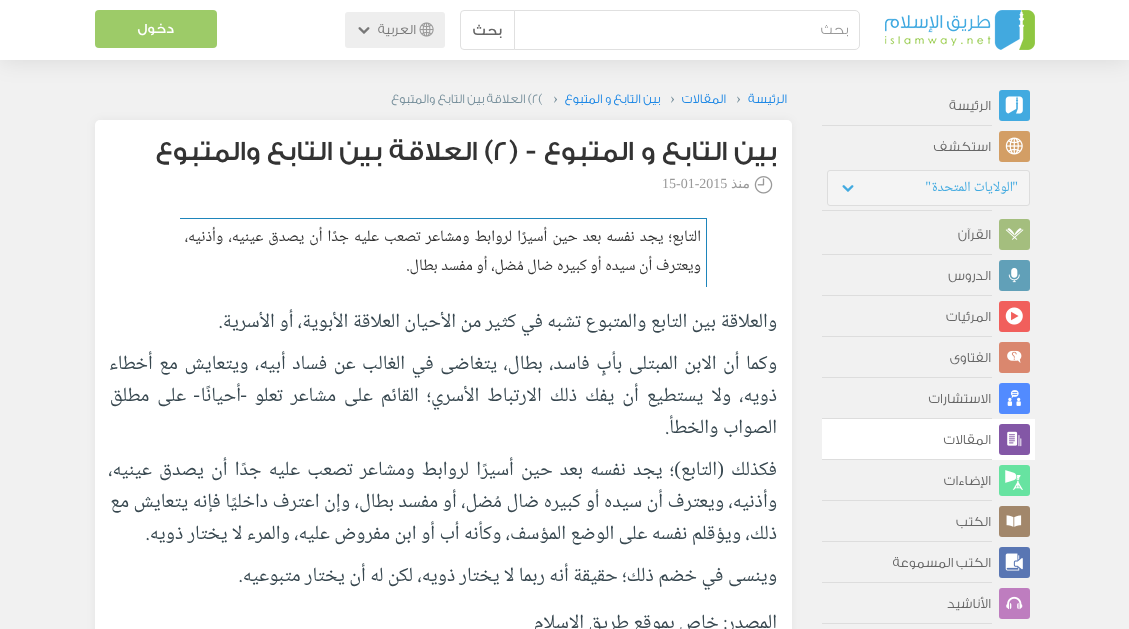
(async () => {
  const canvas = document.querySelector("canvas");
  canvas.width = 1129;
  canvas.height = 629;
  const ctx = canvas.getContext("2d");
  ctx.miterLimit = 4;
  ctx.fontKerning = "normal";
  async function loadImage(src) {
    const img = new Image();
    img.src = src;
    await img.decode();
    return img;
  }

  ctx.fillStyle = "#f1f1f1";
  ctx.fillRect(0, 0, 1129, 629);
  ctx.fillStyle = "#42aae0";
  ctx.beginPath();
  ctx.roundRect(999, 90, 31, 31, 3);
  ctx.fill();
  ctx.drawImage(await loadImage("img/4.png"), 1005, 96, 18, 18);
  ctx.fillStyle = "rgba(0, 0, 0, 0.1)";
  ctx.filter = "blur(12.5px)";
  ctx.beginPath();
  ctx.rect(0, 0, 1129, 60);
  ctx.fill();
  ctx.filter = "none";
  ctx.fillStyle = "#ffffff";
  ctx.fillRect(0, 0, 1129, 60);
  ctx.drawImage(await loadImage("img/1.png"), 885, 10, 150, 40);
  ctx.beginPath();
  ctx.roundRect(460.5, 10.5, 54, 39, [3.5, 0, 0, 3.5]);
  ctx.strokeStyle = "#e0e0e0";
  ctx.stroke();
  ctx.beginPath();
  ctx.roundRect(514.5, 10.5, 345, 39, [0, 4.5, 4.5, 0]);
  ctx.fill();
  ctx.stroke();
  ctx.fillStyle = "#eeeeee";
  ctx.beginPath();
  ctx.roundRect(345, 12, 100, 36, 3);
  ctx.fill();
  ctx.drawImage(await loadImage("img/2.png"), 419, 22, 15, 15);
  ctx.drawImage(await loadImage("img/3.png"), 358, 27, 12, 7);
  ctx.fillStyle = "#9dcb68";
  ctx.beginPath();
  ctx.roundRect(95, 10, 122, 38, 4);
  ctx.fill();
  ctx.fillStyle = "#dddddd";
  ctx.fillRect(822, 125, 170, 1);
  ctx.fillStyle = "#d39e65";
  ctx.beginPath();
  ctx.roundRect(999, 131, 31, 31, 3);
  ctx.fill();
  ctx.drawImage(await loadImage("img/5.png"), 1005, 137, 18, 18);
  ctx.fillStyle = "#f4f4f4";
  ctx.beginPath();
  ctx.roundRect(827.5, 170.5, 202, 35, 2.5);
  ctx.fill();
  ctx.strokeStyle = "#dddddd";
  ctx.stroke();
  ctx.drawImage(await loadImage("img/6.png"), 842, 185, 12, 7);
  ctx.fillStyle = "#dddddd";
  ctx.fillRect(822, 210, 170, 1);
  ctx.fillStyle = "#a4be7e";
  ctx.beginPath();
  ctx.roundRect(999, 219, 31, 31, 3);
  ctx.fill();
  ctx.drawImage(await loadImage("img/7.png"), 1005, 228, 19, 12);
  ctx.fillStyle = "#dddddd";
  ctx.fillRect(822, 254, 170, 1);
  ctx.fillStyle = "#61a0b8";
  ctx.beginPath();
  ctx.roundRect(999, 260, 31, 31, 3);
  ctx.fill();
  ctx.drawImage(await loadImage("img/8.png"), 1008, 267, 12, 16);
  ctx.fillStyle = "#dddddd";
  ctx.fillRect(822, 295, 170, 1);
  ctx.fillStyle = "#f15f5c";
  ctx.beginPath();
  ctx.roundRect(999, 301, 31, 31, 3);
  ctx.fill();
  ctx.drawImage(await loadImage("img/9.png"), 1005, 307, 18, 18);
  ctx.fillStyle = "#dddddd";
  ctx.fillRect(822, 336, 170, 1);
  ctx.fillStyle = "#da876e";
  ctx.beginPath();
  ctx.roundRect(999, 342, 31, 31, 3);
  ctx.fill();
  ctx.drawImage(await loadImage("img/10.png"), 1007, 350, 15, 13);
  ctx.fillStyle = "#dddddd";
  ctx.fillRect(822, 377, 170, 1);
  ctx.fillStyle = "#528bff";
  ctx.beginPath();
  ctx.roundRect(999, 383, 31, 31, 3);
  ctx.fill();
  ctx.drawImage(await loadImage("img/11.png"), 1007, 390, 14, 16);
  ctx.fillStyle = "#dddddd";
  ctx.fillRect(822, 418, 170, 1);
  ctx.fillStyle = "#ffffff";
  ctx.fillRect(822, 419, 213, 41);
  ctx.fillStyle = "#8357a6";
  ctx.beginPath();
  ctx.roundRect(999, 424, 31, 31, 3);
  ctx.fill();
  ctx.drawImage(await loadImage("img/12.png"), 1007, 431, 15, 16);
  ctx.fillStyle = "#dddddd";
  ctx.fillRect(822, 459, 170, 1);
  ctx.fillStyle = "#67e3a1";
  ctx.beginPath();
  ctx.roundRect(999, 465, 31, 31, 3);
  ctx.fill();
  ctx.drawImage(await loadImage("img/13.png"), 1005, 470, 18, 20);
  ctx.fillStyle = "#dddddd";
  ctx.fillRect(822, 500, 170, 1);
  ctx.fillStyle = "#a2876b";
  ctx.beginPath();
  ctx.roundRect(999, 506, 31, 31, 3);
  ctx.fill();
  ctx.drawImage(await loadImage("img/14.png"), 1006, 515, 16, 12);
  ctx.fillStyle = "#dddddd";
  ctx.fillRect(822, 541, 170, 1);
  ctx.fillStyle = "#5976b3";
  ctx.beginPath();
  ctx.roundRect(999, 547, 31, 31, 3);
  ctx.fill();
  ctx.drawImage(await loadImage("img/15.png"), 1005, 553, 18, 18);
  ctx.fillStyle = "#dddddd";
  ctx.fillRect(822, 582, 170, 1);
  ctx.fillStyle = "#be7dbf";
  ctx.beginPath();
  ctx.roundRect(999, 588, 31, 31, 3);
  ctx.fill();
  ctx.drawImage(await loadImage("img/16.png"), 1006, 596, 17, 14);
  ctx.fillStyle = "#dddddd";
  ctx.fillRect(822, 623, 170, 1);
  ctx.fillStyle = "rgba(0, 0, 0, 0.05)";
  ctx.filter = "blur(5px)";
  ctx.beginPath();
  ctx.roundRect(95, 120, 697, 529, 5);
  ctx.fill();
  ctx.filter = "none";
  ctx.fillStyle = "#ffffff";
  ctx.beginPath();
  ctx.roundRect(95, 120, 697, 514, 5);
  ctx.fill();
  ctx.drawImage(await loadImage("img/17.png"), 754, 176, 19, 18);
  ctx.fillStyle = "#1e85bb";
  ctx.fillRect(180, 218, 527, 1);
  ctx.fillRect(706, 218, 1, 69);
  ctx.direction = "rtl";
  ctx.font = "300 14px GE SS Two";
  ctx.fillStyle = "#999999";
  ctx.fillText("بحث", 848, 34);
  ctx.font = "500 14px GE SS Two";
  ctx.fillStyle = "#666666";
  ctx.fillText("بحث", 502, 35);
  ctx.font = "300 14px GE SS Two";
  ctx.fillStyle = "#777777";
  ctx.fillText("العربية", 416, 34);
  ctx.font = "500 14px GE SS Two";
  ctx.fillStyle = "#ffffff";
  ctx.fillText("دخول", 174, 33);
  ctx.font = "300 14px GE SS Two";
  ctx.fillStyle = "#666666";
  ctx.fillText("الرئيسة", 991, 110);
  ctx.fillText("استكشف", 991, 151);
  ctx.font = "14px Liberation Serif";
  ctx.fillStyle = "#42aae0";
  ctx.fillText("\"", 1018, 191);
  ctx.font = "14px Noto Naskh Arabic";
  ctx.fillText("الولايات المتحدة", 1013, 191);
  ctx.font = "14px Liberation Serif";
  ctx.fillText("\"", 931, 191);
  ctx.font = "300 14px GE SS Two";
  ctx.fillStyle = "#666666";
  for (const [text, x, y] of [
    ["القرآن", 991, 239],
    ["الدروس", 991, 280],
    ["المرئيات", 991, 321],
    ["الفتاوى", 991, 362],
    ["الاستشارات", 991, 403],
    ["المقالات", 991, 444],
    ["الإضاءات", 991, 485],
    ["الكتب", 991, 526],
    ["الكتب المسموعة", 991, 567],
    ["الأناشيد", 991, 608],
  ]) {
    ctx.fillText(text, x, y);
  }
  ctx.font = "300 13px GE SS Two";
  ctx.fillStyle = "#1e88e5";
  ctx.fillText("الرئيسة", 787, 103);
  ctx.direction = "ltr";
  ctx.font = "15px Liberation Serif";
  ctx.fillStyle = "#78909c";
  ctx.fillText("›", 736, 103);
  ctx.direction = "rtl";
  ctx.font = "300 13px GE SS Two";
  ctx.fillStyle = "#1e88e5";
  ctx.fillText("المقالات", 726, 103);
  ctx.direction = "ltr";
  ctx.font = "15px Liberation Serif";
  ctx.fillStyle = "#78909c";
  ctx.fillText("›", 670, 103);
  ctx.direction = "rtl";
  ctx.font = "300 13px GE SS Two";
  ctx.fillStyle = "#1e88e5";
  ctx.fillText("بين التابع و المتبوع", 660, 103);
  ctx.direction = "ltr";
  ctx.font = "15px Liberation Serif";
  ctx.fillStyle = "#78909c";
  ctx.fillText("›", 553, 103);
  ctx.font = "300 13px GE SS Two";
  ctx.fillText("2(", 532, 103);
  ctx.direction = "rtl";
  ctx.fillText(") العلاقة بين التابع والمتبوع", 532, 103);
  ctx.font = "500 28px GE SS Two";
  ctx.fillStyle = "#333333";
  ctx.fillText("بين التابع و المتبوع - (", 777, 160);
  ctx.direction = "ltr";
  ctx.fillText("2", 493, 160);
  ctx.direction = "rtl";
  ctx.fillText(") العلاقة بين التابع والمتبوع", 493, 160);
  ctx.font = "14px DejaVu Sans";
  ctx.fillStyle = "#999999";
  ctx.fillText("منذ", 750, 188);
  ctx.direction = "ltr";
  ctx.font = "14px Liberation Serif";
  ctx.fillText("15-01-2015", 662, 188);
  ctx.wordSpacing = "1.5px";
  ctx.direction = "rtl";
  ctx.font = "16px Noto Naskh Arabic";
  ctx.fillStyle = "#333333";
  ctx.fillText("التابع؛ يجد نفسه بعد حين أسيرًا لروابط ومشاعر تصعب عليه جدًا أن يصدق عينيه، وأذنيه،", 701, 241);
  ctx.wordSpacing = "0px";
  ctx.fillText("ويعترف أن سيده أو كبيره ضال مُضل، أو مفسد بطال.", 701, 270);
  ctx.font = "20px Noto Naskh Arabic";
  ctx.fillStyle = "#37474f";
  ctx.fillText("والعلاقة بين التابع والمتبوع تشبه في كثير من الأحيان العلاقة الأبوية، أو الأسرية.", 777, 327);
  ctx.wordSpacing = "2.1px";
  ctx.fillText("وكما أن الابن المبتلى بأبٍ فاسد، بطال، يتغاضى في الغالب عن فساد أبيه، ويتعايش مع أخطاء", 777, 369);
  ctx.wordSpacing = "3.6px";
  ctx.fillText("ذويه، ولا يستطيع أن يفك ذلك الارتباط الأسري؛ القائم على مشاعر تعلو", 777, 401);
  ctx.wordSpacing = "0px";
  ctx.font = "20px Liberation Serif";
  ctx.fillText("-", 247, 401);
  ctx.font = "20px Noto Naskh Arabic";
  ctx.fillText("أحيانًا", 241, 401);
  ctx.font = "20px Liberation Serif";
  ctx.fillText("-", 200, 401);
  ctx.wordSpacing = "3.6px";
  ctx.font = "20px Noto Naskh Arabic";
  ctx.fillText("على مطلق", 186, 401);
  ctx.wordSpacing = "0px";
  ctx.fillText("الصواب والخطأ.", 777, 433);
  ctx.fillText("فكذلك", 777, 475);
  ctx.font = "20px Liberation Serif";
  ctx.fillText("(", 724, 475);
  ctx.font = "20px Noto Naskh Arabic";
  ctx.fillText("التابع", 717, 475);
  ctx.font = "20px Liberation Serif";
  ctx.fillText(")", 681, 475);
  ctx.wordSpacing = "2.75px";
  ctx.font = "20px Noto Naskh Arabic";
  ctx.fillText("؛ يجد نفسه بعد حين أسيرًا لروابط ومشاعر تصعب عليه جدًا أن يصدق عينيه،", 674, 475);
  ctx.wordSpacing = "0.1px";
  ctx.fillText("وأذنيه، ويعترف أن سيده أو كبيره ضال مُضل، أو مفسد بطال، وإن اعترف داخليًا فإنه يتعايش مع", 777, 507);
  ctx.wordSpacing = "0px";
  for (const [text, x, y] of [
    ["ذلك، ويؤقلم نفسه على الوضع المؤسف، وكأنه أب أو ابن مفروض عليه، والمرء لا يختار ذويه.", 777, 539],
    ["وينسى في خضم ذلك؛ حقيقة أنه ربما لا يختار ذويه، لكن له أن يختار متبوعيه.", 777, 581],
    ["المصدر: خاص بموقع طريق الإسلام", 777, 628],
  ]) {
    ctx.fillText(text, x, y);
  }
})();
